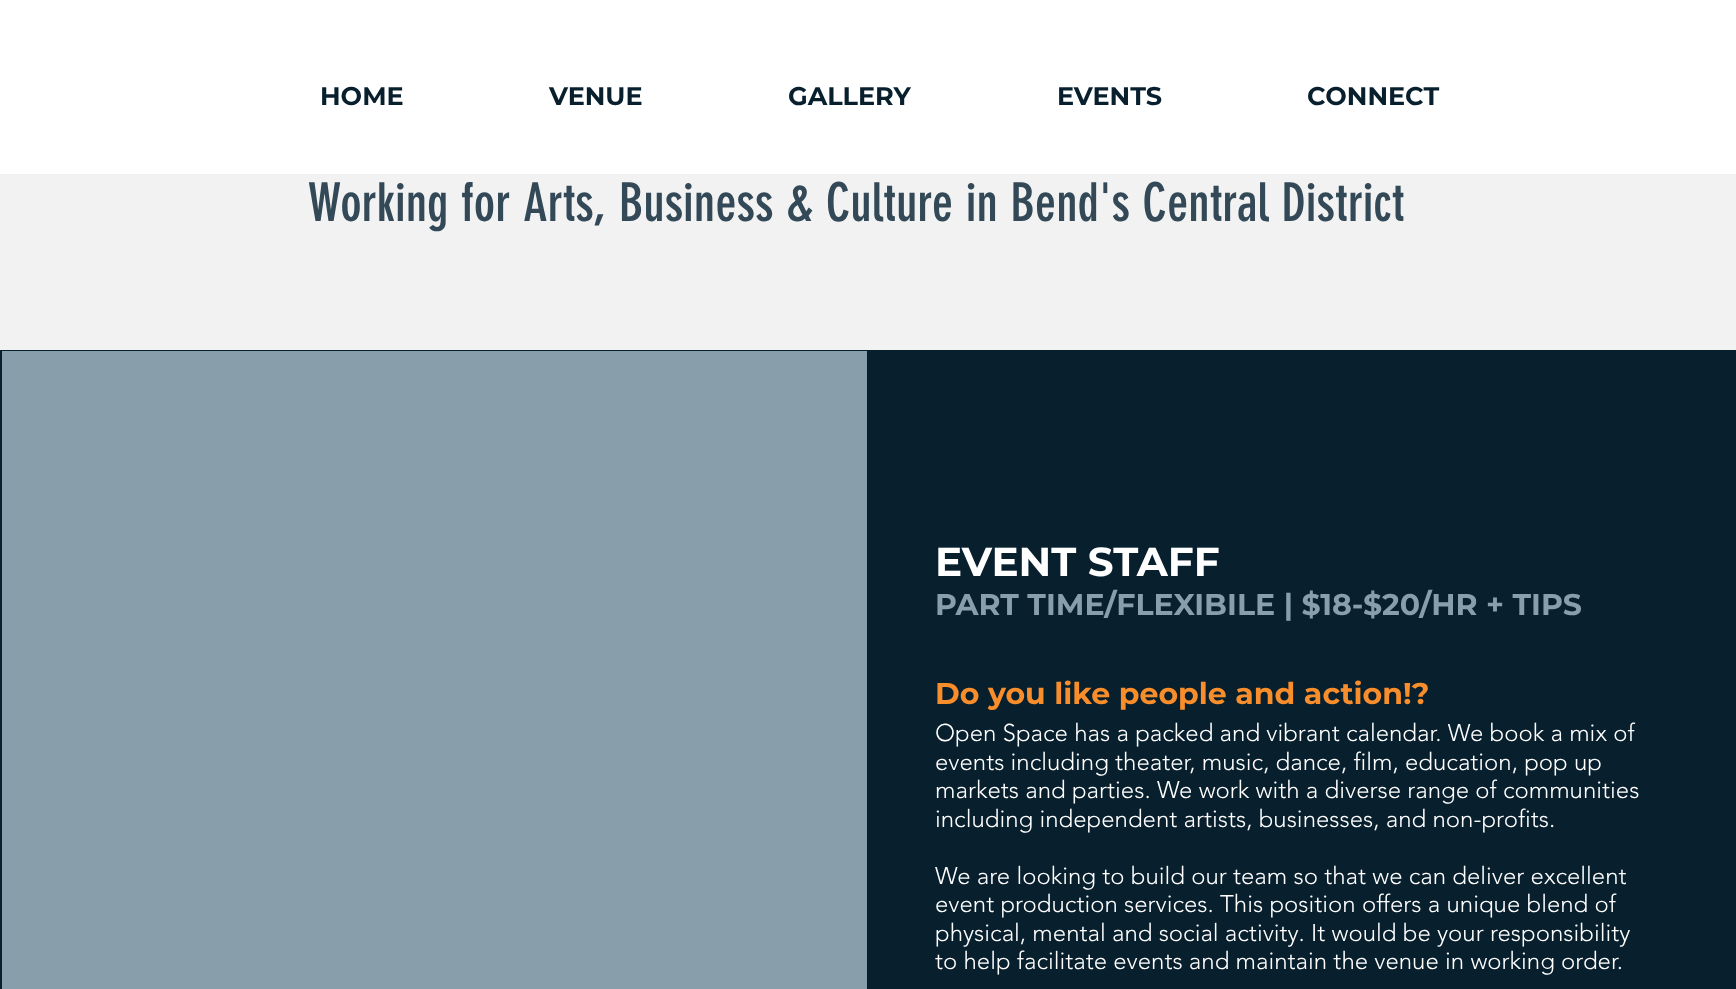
(async () => {
  const canvas = document.querySelector("canvas");
  canvas.width = 1736;
  canvas.height = 989;
  const ctx = canvas.getContext("2d");
  ctx.miterLimit = 4;
  ctx.fontKerning = "normal";

  ctx.fillStyle = "#f2f2f2";
  ctx.fillRect(0, 0, 1736, 989);
  for (const [x, y, w, h, color] of [
    [0, 0, 1736, 174, "#ffffff"],
    [0, 350, 1736, 639, "#081f2d"],
    [2, 351, 865, 638, "#889eab"],
  ]) {
    ctx.fillStyle = color;
    ctx.fillRect(x, y, w, h);
  }
  ctx.font = "bold 25.5px Montserrat";
  ctx.fillStyle = "#081f2d";
  for (const [text, x, y] of [
    ["HOME", 320, 105],
    ["VENUE", 549, 105],
    ["GALLERY", 788, 105],
    ["EVENTS", 1057, 105],
    ["CONNECT", 1307, 105],
  ]) {
    ctx.fillText(text, x, y);
  }
  ctx.font = "52.5px 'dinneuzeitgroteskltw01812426'";
  ctx.fillStyle = "#334957";
  ctx.fillText("Working for Arts, Business & Culture in Bend's Central District", 308, 221);
  ctx.font = "bold 40.5px Montserrat";
  ctx.fillStyle = "#ffffff";
  ctx.fillText("EVENT STAFF", 935, 576);
  ctx.font = "bold 30px Montserrat";
  ctx.fillStyle = "#889eab";
  ctx.fillText("PART TIME/FLEXIBILE | $18-$20/HR + TIPS", 935, 615);
  ctx.fillStyle = "#f88d2b";
  ctx.fillText("Do you like people and action!?", 935, 704);
  ctx.font = "300 24px 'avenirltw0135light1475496'";
  ctx.fillStyle = "#ffffff";
  for (const [text, x, y] of [
    ["Open Space has a packed and vibrant calendar. We book a mix of", 935, 741],
    ["events including theater, music, dance, film, education, pop up", 935, 770],
    ["markets and parties. We work with a diverse range of communities", 935, 798],
    ["including independent artists, businesses, and non-profits.", 935, 827],
    ["We are looking to build our team so that we can deliver excellent", 935, 884],
    ["event production services. This position offers a unique blend of", 935, 912],
    ["physical, mental and social activity. It would be your responsibility", 935, 941],
    ["to help facilitate events and maintain the venue in working order.", 935, 969],
  ]) {
    ctx.fillText(text, x, y);
  }
})();
